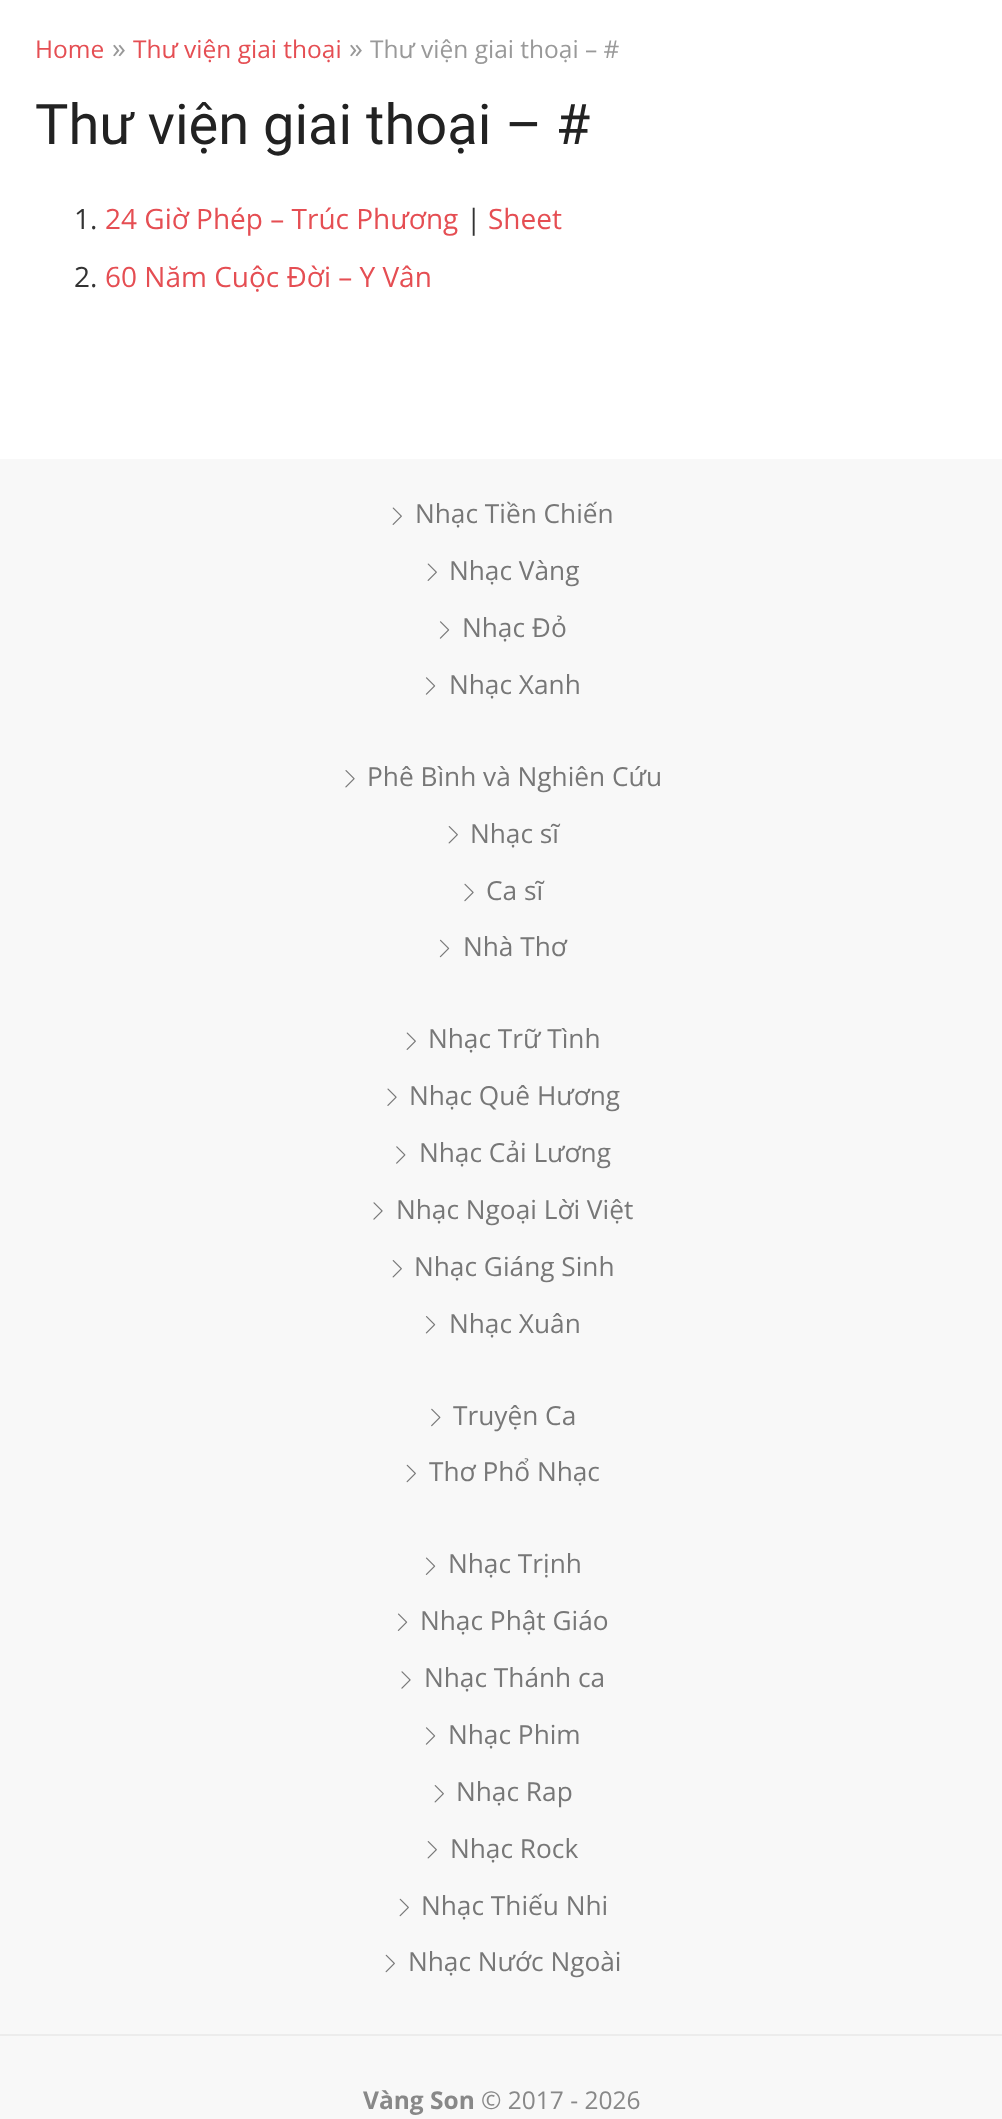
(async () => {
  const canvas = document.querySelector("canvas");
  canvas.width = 1002;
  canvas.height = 2119;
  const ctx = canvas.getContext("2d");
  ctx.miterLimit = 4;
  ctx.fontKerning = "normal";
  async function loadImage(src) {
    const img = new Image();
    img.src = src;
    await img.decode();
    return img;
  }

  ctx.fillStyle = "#ffffff";
  ctx.fillRect(0, 0, 1002, 2119);
  ctx.fillStyle = "#f8f8f8";
  ctx.fillRect(0, 459, 1002, 1660);
  ctx.drawImage(await loadImage("img/1.png"), 392, 507, 10, 18);
  ctx.drawImage(await loadImage("img/1.png"), 427, 563, 10, 18);
  ctx.drawImage(await loadImage("img/2.png"), 439, 621, 11, 18);
  ctx.drawImage(await loadImage("img/2.png"), 425, 677, 11, 18);
  ctx.drawImage(await loadImage("img/3.png"), 345, 770, 10, 18);
  ctx.drawImage(await loadImage("img/4.png"), 448, 826, 10, 18);
  ctx.drawImage(await loadImage("img/5.png"), 464, 883, 10, 19);
  ctx.drawImage(await loadImage("img/6.png"), 439, 939, 11, 19);
  ctx.drawImage(await loadImage("img/1.png"), 406, 1032, 10, 18);
  ctx.drawImage(await loadImage("img/7.png"), 387, 1088, 10, 18);
  ctx.drawImage(await loadImage("img/8.png"), 396, 1146, 10, 18);
  ctx.drawImage(await loadImage("img/9.png"), 373, 1202, 10, 18);
  ctx.drawImage(await loadImage("img/4.png"), 392, 1260, 10, 18);
  ctx.drawImage(await loadImage("img/10.png"), 425, 1316, 11, 18);
  ctx.drawImage(await loadImage("img/11.png"), 431, 1408, 10, 19);
  ctx.drawImage(await loadImage("img/12.png"), 406, 1464, 10, 19);
  ctx.drawImage(await loadImage("img/13.png"), 425, 1557, 11, 18);
  ctx.drawImage(await loadImage("img/13.png"), 397, 1613, 11, 18);
  ctx.drawImage(await loadImage("img/9.png"), 401, 1671, 10, 18);
  ctx.drawImage(await loadImage("img/2.png"), 425, 1727, 11, 18);
  ctx.drawImage(await loadImage("img/4.png"), 434, 1785, 10, 18);
  ctx.drawImage(await loadImage("img/4.png"), 427, 1841, 10, 18);
  ctx.drawImage(await loadImage("img/12.png"), 399, 1898, 10, 19);
  ctx.drawImage(await loadImage("img/12.png"), 385, 1954, 10, 19);
  ctx.fillStyle = "#ececec";
  ctx.fillRect(0, 2034, 1002, 2);
  ctx.font = "24.5px Open Sans";
  ctx.fillStyle = "#e54e53";
  ctx.fillText("Home", 35, 58);
  ctx.font = "28px Open Sans";
  ctx.fillStyle = "#999999";
  ctx.fillText("»", 112, 58);
  ctx.font = "24.5px Open Sans";
  ctx.fillStyle = "#e54e53";
  ctx.fillText("Thư viện giai thoại", 133, 58);
  ctx.font = "28px Open Sans";
  ctx.fillStyle = "#999999";
  ctx.fillText("»", 349, 58);
  ctx.font = "24.5px Open Sans";
  ctx.fillText("Thư viện giai thoại – #", 370, 58);
  ctx.font = "56px Roboto";
  ctx.fillStyle = "#222222";
  ctx.fillText("Thư viện giai thoại – #", 35, 144);
  ctx.font = "28px Open Sans";
  ctx.fillStyle = "#333333";
  ctx.fillText("1.", 74, 229);
  ctx.fillStyle = "#e54e53";
  ctx.fillText("24 Giờ Phép – Trúc Phương", 105, 229);
  ctx.fillStyle = "#333333";
  ctx.fillText("|", 466, 229);
  ctx.fillStyle = "#e54e53";
  ctx.fillText("Sheet", 488, 229);
  ctx.fillStyle = "#333333";
  ctx.fillText("2.", 74, 287);
  ctx.fillStyle = "#e54e53";
  ctx.fillText("60 Năm Cuộc Đời – Y Vân", 105, 287);
  ctx.font = "26.25px Open Sans";
  ctx.fillStyle = "#777777";
  for (const [text, x, y] of [
    ["Nhạc Tiền Chiến", 415, 523],
    ["Nhạc Vàng", 449, 580],
    ["Nhạc Đỏ", 462, 637],
    ["Nhạc Xanh", 449, 694],
    ["Phê Bình và Nghiên Cứu", 367, 786],
    ["Nhạc sĩ", 470, 843],
    ["Ca sĩ", 486, 900],
    ["Nhà Thơ", 463, 956],
    ["Nhạc Trữ Tình", 428, 1048],
    ["Nhạc Quê Hương", 409, 1105],
    ["Nhạc Cải Lương", 419, 1162],
    ["Nhạc Ngoại Lời Việt", 396, 1219],
    ["Nhạc Giáng Sinh", 414, 1276],
    ["Nhạc Xuân", 449, 1333],
    ["Truyện Ca", 453, 1425],
    ["Thơ Phổ Nhạc", 429, 1481],
    ["Nhạc Trịnh", 448, 1573],
    ["Nhạc Phật Giáo", 420, 1630],
    ["Nhạc Thánh ca", 424, 1687],
    ["Nhạc Phim", 448, 1744],
    ["Nhạc Rap", 456, 1801],
    ["Nhạc Rock", 450, 1858],
    ["Nhạc Thiếu Nhi", 421, 1915],
    ["Nhạc Nước Ngoài", 408, 1971],
  ]) {
    ctx.fillText(text, x, y);
  }
  ctx.font = "bold 24.5px Open Sans";
  ctx.fillStyle = "#888888";
  ctx.fillText("Vàng Son", 363, 2109);
  ctx.font = "24.5px Open Sans";
  ctx.fillText("© 2017 - 2026", 481, 2109);
})();
